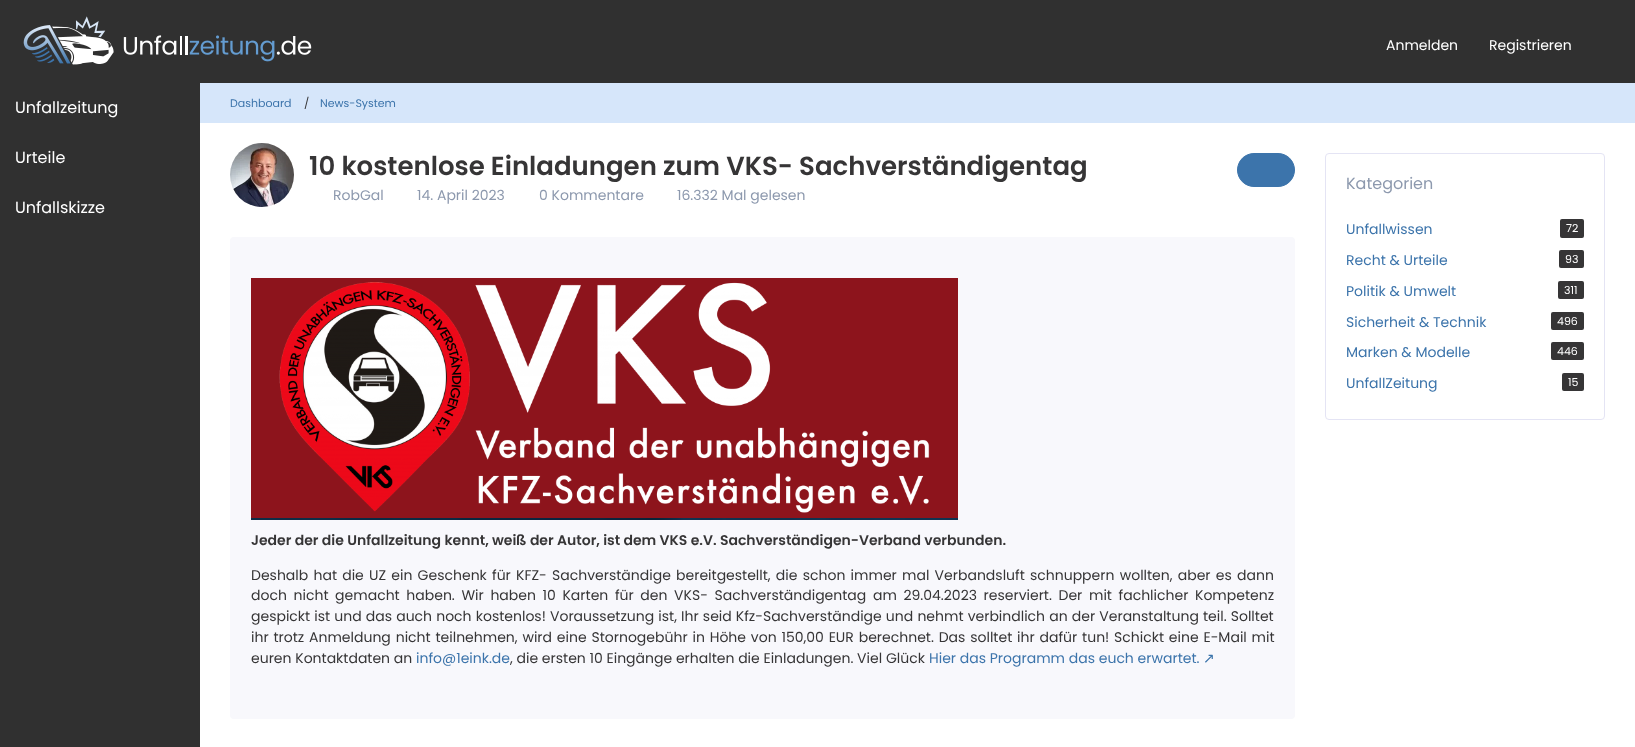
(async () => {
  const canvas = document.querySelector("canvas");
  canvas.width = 1635;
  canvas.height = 747;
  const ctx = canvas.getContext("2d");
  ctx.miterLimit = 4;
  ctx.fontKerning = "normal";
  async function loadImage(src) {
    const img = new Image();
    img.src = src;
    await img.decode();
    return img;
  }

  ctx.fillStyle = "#ffffff";
  ctx.fillRect(0, 0, 1635, 747);
  ctx.fillStyle = "#303030";
  ctx.fillRect(0, 0, 1635, 83);
  ctx.drawImage(await loadImage("img/1.png"), 23, 16, 289, 49);
  ctx.fillRect(0, 83, 200, 664);
  ctx.fillStyle = "#d6e6fa";
  ctx.fillRect(200, 83, 1435, 40);
  ctx.drawImage(await loadImage("img/2.png"), 230, 143, 64, 64);
  ctx.fillStyle = "#3c74ab";
  ctx.beginPath();
  ctx.roundRect(1237.5, 153.5, 57, 33, 16.5);
  ctx.fill();
  ctx.strokeStyle = "#3c74ab";
  ctx.stroke();
  ctx.fillStyle = "#f8f8fc";
  ctx.beginPath();
  ctx.roundRect(230, 237, 1065, 482, 4);
  ctx.fill();
  ctx.drawImage(await loadImage("img/3.png"), 251, 278, 707, 242);
  ctx.beginPath();
  ctx.roundRect(1325.5, 153.5, 279, 266, 3.5);
  ctx.strokeStyle = "#e4e4f4";
  ctx.stroke();
  ctx.fillStyle = "#363536";
  ctx.beginPath();
  ctx.roundRect(1560, 219, 24, 19, 2);
  ctx.fill();
  ctx.beginPath();
  ctx.roundRect(1559, 250, 25, 18, 2);
  ctx.fill();
  ctx.beginPath();
  ctx.roundRect(1558, 281, 26, 18, 2);
  ctx.fill();
  ctx.beginPath();
  ctx.roundRect(1551, 312, 33, 18, 2);
  ctx.fill();
  ctx.beginPath();
  ctx.roundRect(1551, 342, 33, 18, 2);
  ctx.fill();
  ctx.beginPath();
  ctx.roundRect(1562, 373, 22, 18, 2);
  ctx.fill();
  ctx.font = "14px Poppins";
  ctx.fillStyle = "#ffffff";
  ctx.fillText("Anmelden", 1386, 50);
  ctx.fillText("Registrieren", 1489, 50);
  ctx.font = "16px Poppins";
  for (const [text, x, y] of [
    ["Unfallzeitung", 15, 113],
    ["Urteile", 15, 163],
    ["Unfallskizze", 15, 213],
  ]) {
    ctx.fillText(text, x, y);
  }
  ctx.font = "11px Poppins";
  ctx.fillStyle = "#3c74ab";
  ctx.fillText("Dashboard", 230, 107);
  ctx.fillStyle = "#363536";
  ctx.fillText("/", 304, 107);
  ctx.fillStyle = "#3c74ab";
  ctx.fillText("News-System", 320, 107);
  ctx.font = "600 26px Poppins";
  ctx.fillStyle = "#363536";
  ctx.fillText("10 kostenlose Einladungen zum VKS- Sachverständigentag", 309, 175);
  ctx.font = "14px Poppins";
  ctx.fillStyle = "#8d99ae";
  for (const [text, x, y] of [
    ["RobGal", 333, 200],
    ["14. April 2023", 417, 200],
    ["0 Kommentare", 539, 200],
    ["16.332 Mal gelesen", 677, 200],
  ]) {
    ctx.fillText(text, x, y);
  }
  ctx.font = "600 14px Poppins";
  ctx.fillStyle = "#363536";
  ctx.fillText("Jeder der die Unfallzeitung kennt, weiß der Autor, ist dem VKS e.V. Sachverständigen-Verband verbunden.", 251, 545);
  ctx.wordSpacing = "1.5px";
  ctx.font = "14px Poppins";
  ctx.fillText("Deshalb hat die UZ ein Geschenk für KFZ- Sachverständige bereitgestellt, die schon immer mal Verbandsluft schnuppern wollten, aber es dann", 251, 580);
  ctx.wordSpacing = "2.9px";
  ctx.fillText("doch nicht gemacht haben. Wir haben 10 Karten für den VKS- Sachverständigentag am 29.04.2023 reserviert. Der mit fachlicher Kompetenz", 251, 600);
  ctx.wordSpacing = "0.4px";
  ctx.fillText("gespickt ist und das auch noch kostenlos! Voraussetzung ist, Ihr seid Kfz-Sachverständige und nehmt verbindlich an der Veranstaltung teil. Solltet", 251, 621);
  ctx.wordSpacing = "1.1px";
  ctx.fillText("ihr trotz Anmeldung nicht teilnehmen, wird eine Stornogebühr in Höhe von 150,00 EUR berechnet. Das solltet ihr dafür tun! Schickt eine E-Mail mit", 251, 642);
  ctx.wordSpacing = "0px";
  ctx.fillText("euren Kontaktdaten an", 251, 663);
  ctx.fillStyle = "#3c74ab";
  ctx.fillText("info@1eink.de", 416, 663);
  ctx.fillStyle = "#363536";
  ctx.fillText(", die ersten 10 Eingänge erhalten die Einladungen. Viel Glück", 510, 663);
  ctx.fillStyle = "#3c74ab";
  ctx.fillText("Hier das Programm das euch erwartet.", 929, 663);
  ctx.font = "14px DejaVu Sans";
  ctx.fillText("↗", 1203, 663);
  ctx.font = "16px Poppins";
  ctx.fillStyle = "#8d99ae";
  ctx.fillText("Kategorien", 1346, 189);
  ctx.font = "14px Poppins";
  ctx.fillStyle = "#3c74ab";
  ctx.fillText("Unfallwissen", 1346, 234);
  ctx.font = "11px Poppins";
  ctx.fillStyle = "#ffffff";
  ctx.fillText("72", 1566, 232);
  ctx.font = "14px Poppins";
  ctx.fillStyle = "#3c74ab";
  ctx.fillText("Recht & Urteile", 1346, 265);
  ctx.font = "11px Poppins";
  ctx.fillStyle = "#ffffff";
  ctx.fillText("93", 1565, 263);
  ctx.font = "14px Poppins";
  ctx.fillStyle = "#3c74ab";
  ctx.fillText("Politik & Umwelt", 1346, 296);
  ctx.font = "11px Poppins";
  ctx.fillStyle = "#ffffff";
  ctx.fillText("311", 1564, 294);
  ctx.font = "14px Poppins";
  ctx.fillStyle = "#3c74ab";
  ctx.fillText("Sicherheit & Technik", 1346, 327);
  ctx.font = "11px Poppins";
  ctx.fillStyle = "#ffffff";
  ctx.fillText("496", 1557, 325);
  ctx.font = "14px Poppins";
  ctx.fillStyle = "#3c74ab";
  ctx.fillText("Marken & Modelle", 1346, 357);
  ctx.font = "11px Poppins";
  ctx.fillStyle = "#ffffff";
  ctx.fillText("446", 1557, 355);
  ctx.font = "14px Poppins";
  ctx.fillStyle = "#3c74ab";
  ctx.fillText("UnfallZeitung", 1346, 388);
  ctx.font = "11px Poppins";
  ctx.fillStyle = "#ffffff";
  ctx.fillText("15", 1568, 386);
})();
